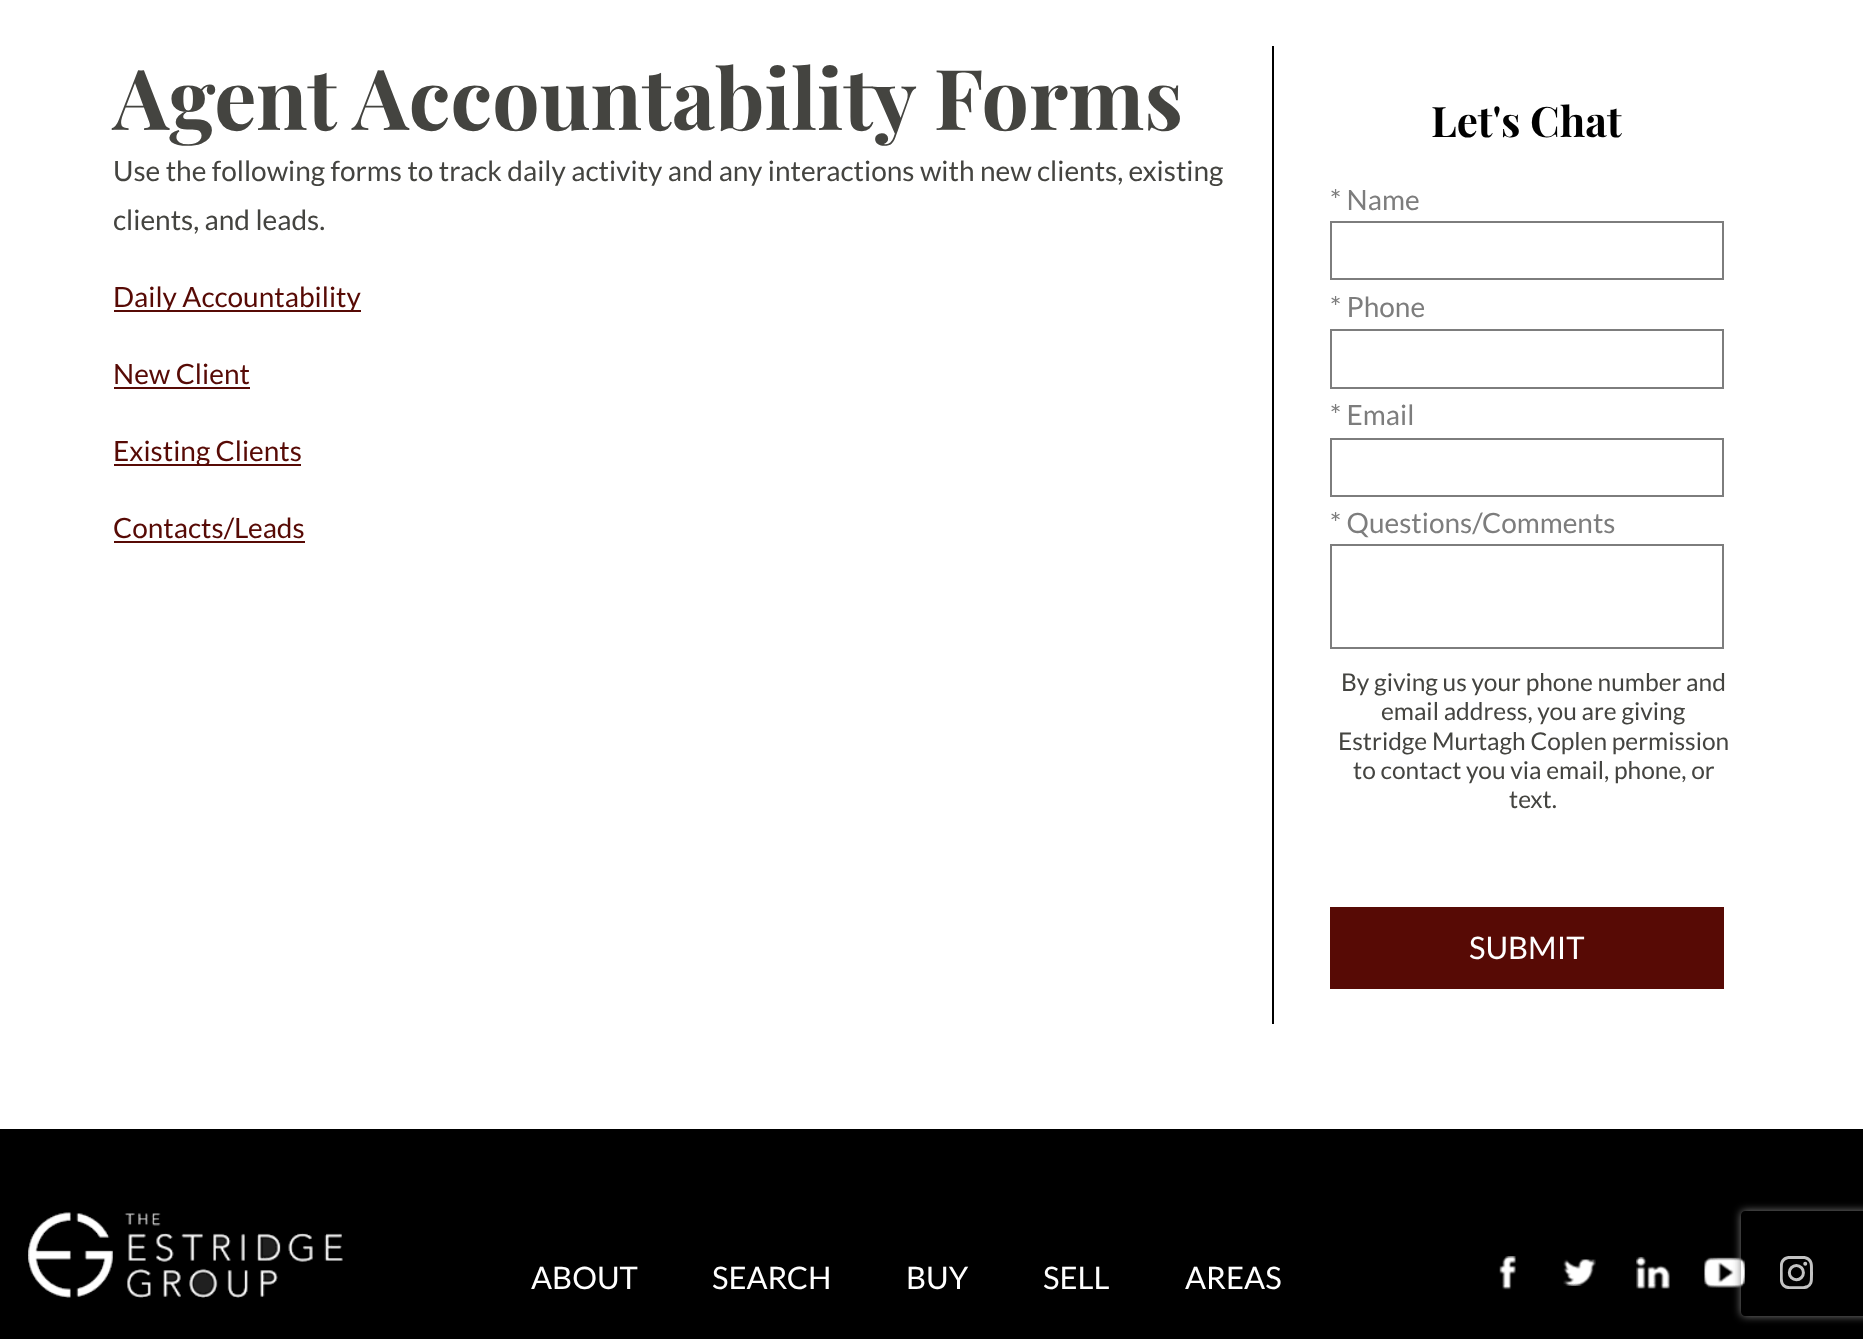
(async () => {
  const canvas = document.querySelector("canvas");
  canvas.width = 1863;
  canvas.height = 1339;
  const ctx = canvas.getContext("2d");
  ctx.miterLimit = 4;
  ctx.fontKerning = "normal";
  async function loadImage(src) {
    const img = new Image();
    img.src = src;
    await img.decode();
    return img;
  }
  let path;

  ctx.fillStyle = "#ffffff";
  ctx.fillRect(0, 0, 1863, 1339);
  for (const [x, y, w, h, color] of [
    [114, 310, 247, 2, "#570a05"],
    [114, 387, 136, 2, "#570a05"],
    [114, 464, 187, 2, "#570a05"],
    [114, 541, 191, 2, "#570a05"],
    [1272, 46, 2, 978, "#000000"],
  ]) {
    ctx.fillStyle = color;
    ctx.fillRect(x, y, w, h);
  }
  ctx.strokeStyle = "#7d7d7d";
  ctx.lineWidth = 2;
  ctx.strokeRect(1331, 222, 392, 57);
  ctx.strokeRect(1331, 330, 392, 58);
  ctx.strokeRect(1331, 439, 392, 57);
  ctx.strokeRect(1331, 545, 392, 103);
  ctx.fillStyle = "#570a05";
  ctx.fillRect(1330, 907, 394, 82);
  ctx.fillStyle = "#000000";
  ctx.fillRect(0, 1129, 1863, 210);
  ctx.drawImage(await loadImage("img/1.png"), 28, 1212, 315, 86);
  ctx.drawImage(await loadImage("img/2.png"), 1499, 1256, 17, 34);
  ctx.drawImage(await loadImage("img/3.png"), 1563, 1259, 33, 27);
  ctx.drawImage(await loadImage("img/4.png"), 1636, 1256, 34, 33);
  ctx.drawImage(await loadImage("img/5.png"), 1704, 1257, 41, 31);
  ctx.drawImage(await loadImage("img/6.png"), 1780, 1256, 33, 33);
  ctx.save();
  path = new Path2D("M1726 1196H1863V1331H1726ZM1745 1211H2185C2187 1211 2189 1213 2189 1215V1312C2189 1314 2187 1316 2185 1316H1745C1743 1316 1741 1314 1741 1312V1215C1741 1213 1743 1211 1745 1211Z");
  ctx.clip(path, "evenodd");
  ctx.fillStyle = "#808080";
  ctx.filter = "blur(4.5px)";
  ctx.beginPath();
  ctx.roundRect(1741, 1211, 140, 105, 4);
  ctx.fill();
  ctx.filter = "none";
  ctx.restore();
  ctx.font = "bold 84px Playfair Display";
  ctx.fillStyle = "#444440";
  ctx.fillText("Agent Accountability Forms", 113, 130);
  ctx.font = "28px Lato";
  ctx.fillText("Use the following forms to track daily activity and any interactions with new clients, existing", 113, 181);
  ctx.fillText("clients, and leads.", 113, 230);
  ctx.fillStyle = "#570a05";
  for (const [text, x, y] of [
    ["Daily Accountability", 113, 307],
    ["New Client", 113, 384],
    ["Existing Clients", 113, 461],
    ["Contacts/Leads", 113, 538],
  ]) {
    ctx.fillText(text, x, y);
  }
  ctx.font = "bold 42px Playfair Display";
  ctx.fillStyle = "#000000";
  ctx.fillText("Let's Chat", 1431, 137);
  ctx.font = "28px Lato";
  ctx.fillStyle = "#7d7d7d";
  for (const [text, x, y] of [
    ["* Name", 1330, 210],
    ["* Phone", 1330, 317],
    ["* Email", 1330, 425],
    ["* Questions/Comments", 1330, 533],
  ]) {
    ctx.fillText(text, x, y);
  }
  ctx.font = "24.5px Lato";
  ctx.fillStyle = "#444440";
  for (const [text, x, y] of [
    ["By giving us your phone number and", 1341, 691],
    ["email address, you are giving", 1381, 720],
    ["Estridge Murtagh Coplen permission", 1338, 750],
    ["to contact you via email, phone, or", 1353, 779],
    ["text.", 1509, 808],
  ]) {
    ctx.fillText(text, x, y);
  }
  ctx.font = "31px Lato";
  ctx.fillStyle = "#ffffff";
  for (const [text, x, y] of [
    ["SUBMIT", 1469, 959],
    ["ABOUT", 531, 1289],
    ["SEARCH", 712, 1289],
    ["BUY", 906, 1289],
    ["SELL", 1043, 1289],
    ["AREAS", 1185, 1289],
  ]) {
    ctx.fillText(text, x, y);
  }
})();
